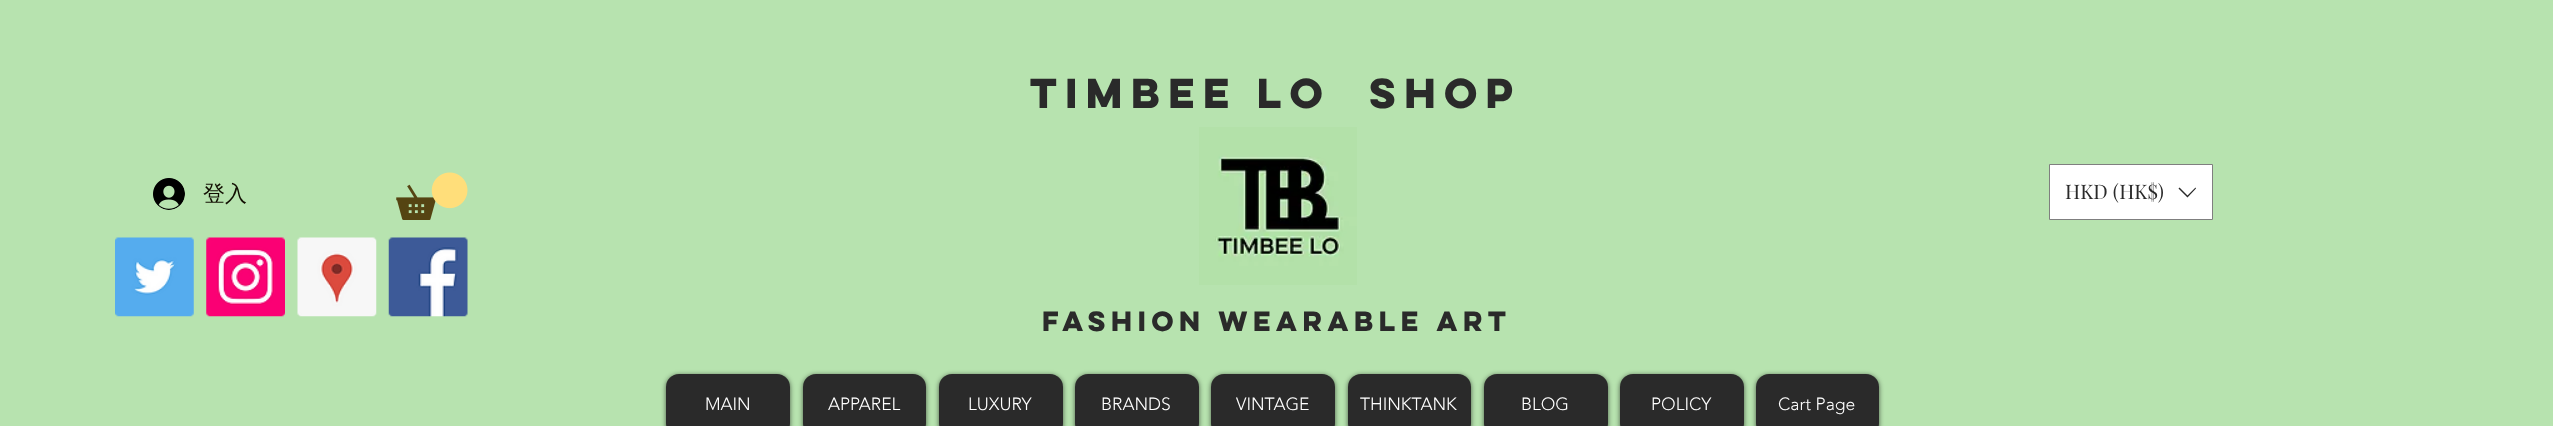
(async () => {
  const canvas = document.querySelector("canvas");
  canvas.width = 2553;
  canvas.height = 426;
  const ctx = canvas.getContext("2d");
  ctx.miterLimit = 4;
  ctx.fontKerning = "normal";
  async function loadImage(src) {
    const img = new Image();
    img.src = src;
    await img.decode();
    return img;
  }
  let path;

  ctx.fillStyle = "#b7e3af";
  ctx.fillRect(0, 0, 2553, 426);
  ctx.drawImage(await loadImage("img/1.png"), 153, 178, 32, 32);
  ctx.drawImage(await loadImage("img/2.png"), 396, 172, 72, 48);
  ctx.drawImage(await loadImage("img/3.png"), 115, 237, 79, 80);
  ctx.drawImage(await loadImage("img/4.png"), 206, 237, 79, 80);
  ctx.drawImage(await loadImage("img/5.png"), 297, 237, 80, 80);
  ctx.drawImage(await loadImage("img/6.png"), 388, 237, 80, 80);
  ctx.drawImage(await loadImage("img/7.png"), 1199, 127, 158, 158);
  ctx.fillStyle = "#ffffff";
  ctx.beginPath();
  ctx.rect(2049.5, 164.5, 163, 55);
  ctx.fill();
  ctx.strokeStyle = "#7f7f7f";
  ctx.stroke();
  ctx.fillStyle = "#2a2a2a";
  path = new Path2D("M2195.5 187.5L2196 188.5L2187.5 197.5L2178.5 188.5L2179.5 187.5L2187.5 195.5Z");
  ctx.fill(path, "evenodd");
  ctx.fillStyle = "rgba(0, 0, 0, 0.6)";
  ctx.filter = "blur(2.5px)";
  ctx.beginPath();
  ctx.roundRect(666, 375, 124, 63, 13);
  ctx.fill();
  ctx.filter = "none";
  ctx.fillStyle = "#2a2a2a";
  ctx.beginPath();
  ctx.roundRect(666, 374, 124, 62, 13);
  ctx.fill();
  ctx.fillStyle = "rgba(0, 0, 0, 0.6)";
  ctx.filter = "blur(2.5px)";
  ctx.beginPath();
  ctx.roundRect(803, 375, 123, 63, 13);
  ctx.fill();
  ctx.filter = "none";
  ctx.fillStyle = "#2a2a2a";
  ctx.beginPath();
  ctx.roundRect(803, 374, 123, 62, 13);
  ctx.fill();
  ctx.fillStyle = "rgba(0, 0, 0, 0.6)";
  ctx.filter = "blur(2.5px)";
  ctx.beginPath();
  ctx.roundRect(939, 375, 124, 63, 13);
  ctx.fill();
  ctx.filter = "none";
  ctx.fillStyle = "#2a2a2a";
  ctx.beginPath();
  ctx.roundRect(939, 374, 124, 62, 13);
  ctx.fill();
  ctx.fillStyle = "rgba(0, 0, 0, 0.6)";
  ctx.filter = "blur(2.5px)";
  ctx.beginPath();
  ctx.roundRect(1075, 375, 124, 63, 13);
  ctx.fill();
  ctx.filter = "none";
  ctx.fillStyle = "#2a2a2a";
  ctx.beginPath();
  ctx.roundRect(1075, 374, 124, 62, 13);
  ctx.fill();
  ctx.fillStyle = "rgba(0, 0, 0, 0.6)";
  ctx.filter = "blur(2.5px)";
  ctx.beginPath();
  ctx.roundRect(1211, 375, 124, 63, 13);
  ctx.fill();
  ctx.filter = "none";
  ctx.fillStyle = "#2a2a2a";
  ctx.beginPath();
  ctx.roundRect(1211, 374, 124, 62, 13);
  ctx.fill();
  ctx.fillStyle = "rgba(0, 0, 0, 0.6)";
  ctx.filter = "blur(2.5px)";
  ctx.beginPath();
  ctx.roundRect(1348, 375, 123, 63, 13);
  ctx.fill();
  ctx.filter = "none";
  ctx.fillStyle = "#2a2a2a";
  ctx.beginPath();
  ctx.roundRect(1348, 374, 123, 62, 13);
  ctx.fill();
  ctx.fillStyle = "rgba(0, 0, 0, 0.6)";
  ctx.filter = "blur(2.5px)";
  ctx.beginPath();
  ctx.roundRect(1484, 375, 124, 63, 13);
  ctx.fill();
  ctx.filter = "none";
  ctx.fillStyle = "#2a2a2a";
  ctx.beginPath();
  ctx.roundRect(1484, 374, 124, 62, 13);
  ctx.fill();
  ctx.fillStyle = "rgba(0, 0, 0, 0.6)";
  ctx.filter = "blur(2.5px)";
  ctx.beginPath();
  ctx.roundRect(1620, 375, 124, 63, 13);
  ctx.fill();
  ctx.filter = "none";
  ctx.fillStyle = "#2a2a2a";
  ctx.beginPath();
  ctx.roundRect(1620, 374, 124, 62, 13);
  ctx.fill();
  ctx.fillStyle = "rgba(0, 0, 0, 0.6)";
  ctx.filter = "blur(2.5px)";
  ctx.beginPath();
  ctx.roundRect(1756, 375, 123, 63, 13);
  ctx.fill();
  ctx.filter = "none";
  ctx.fillStyle = "#2a2a2a";
  ctx.beginPath();
  ctx.roundRect(1756, 374, 123, 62, 13);
  ctx.fill();
  ctx.font = "bold 37.5px 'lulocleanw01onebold'";
  ctx.fillText("Timbee Lo  shop", 1030, 108);
  ctx.font = "500 22px WenQuanYi Zen Hei";
  ctx.fillStyle = "#110d01";
  ctx.fillText("登入", 203, 201);
  ctx.font = "20px Playfair Display";
  ctx.fillStyle = "#2a2a2a";
  ctx.fillText("HKD (HK$)", 2065, 199);
  ctx.font = "bold 25px 'lulocleanw01onebold'";
  ctx.fillText("Fashion Wearable Art", 1042, 331);
  ctx.font = "300 17.5px 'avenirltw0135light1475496'";
  ctx.fillStyle = "#ffffff";
  for (const [text, x, y] of [
    ["MAIN", 705, 410],
    ["APPAREL", 828, 410],
    ["LUXURY", 968, 410],
    ["BRANDS", 1101, 410],
    ["VINTAGE", 1236, 410],
    ["THINKTANK", 1360, 410],
    ["BLOG", 1521, 410],
    ["POLICY", 1651, 410],
    ["Cart Page", 1778, 410],
  ]) {
    ctx.fillText(text, x, y);
  }
})();
